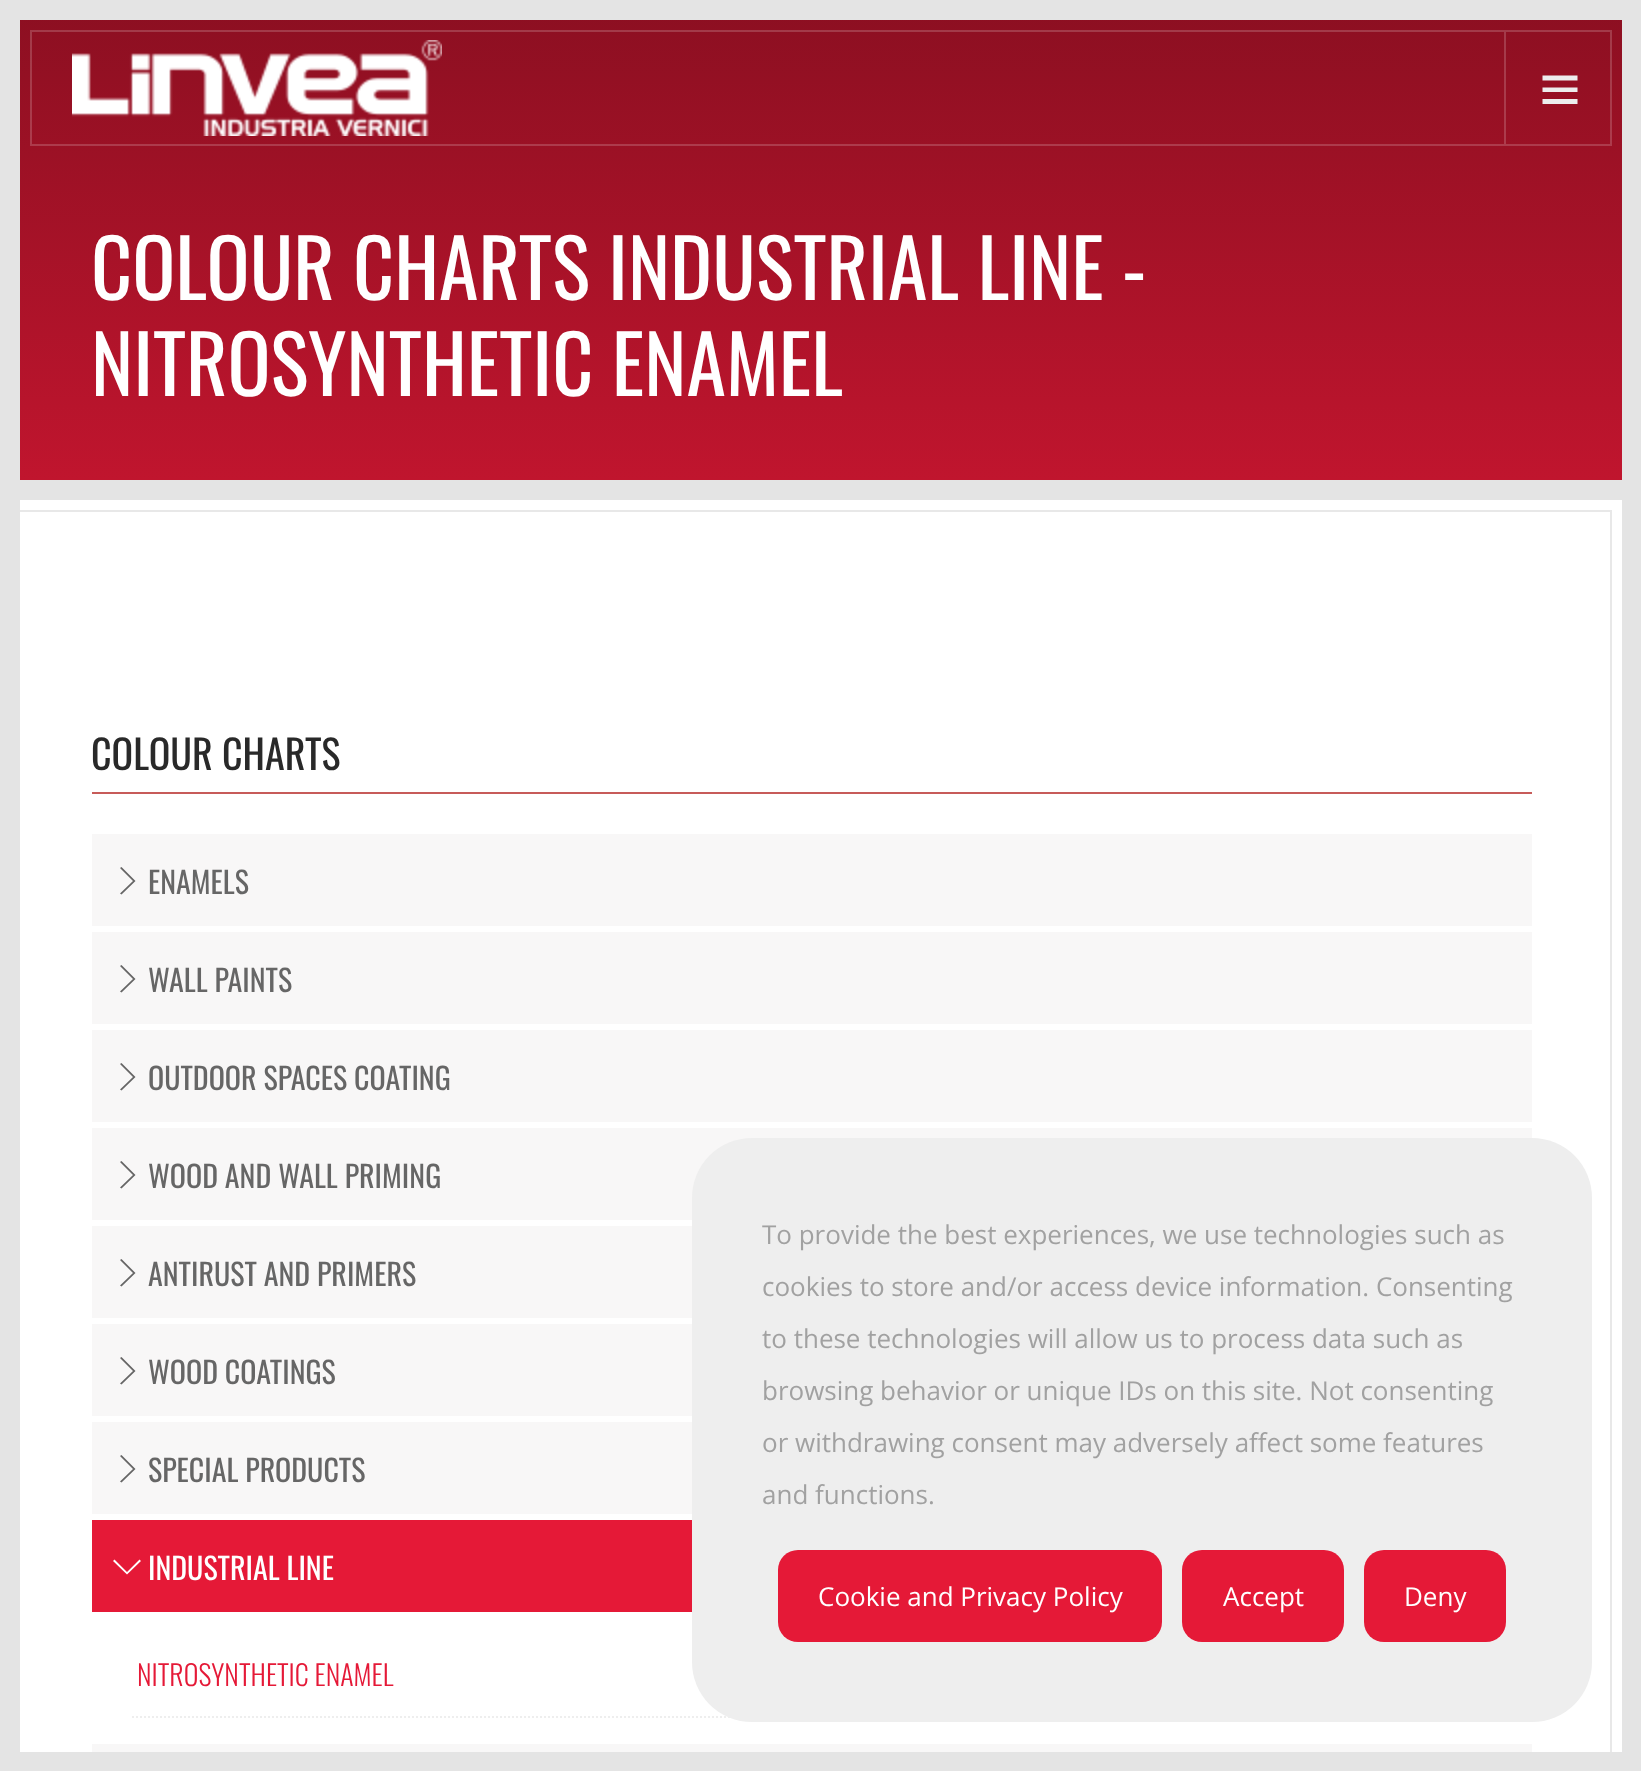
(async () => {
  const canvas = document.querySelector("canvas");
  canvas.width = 1641;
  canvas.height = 1771;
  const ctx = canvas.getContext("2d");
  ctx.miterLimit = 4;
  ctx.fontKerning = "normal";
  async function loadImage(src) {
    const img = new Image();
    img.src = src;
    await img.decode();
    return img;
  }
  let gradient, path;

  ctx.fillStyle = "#ffffff";
  ctx.fillRect(0, 0, 1641, 1771);
  ctx.fillStyle = "#e4e4e4";
  ctx.fillRect(0, 0, 1641, 20);
  ctx.strokeStyle = "#e8e8e8";
  ctx.lineWidth = 2;
  ctx.strokeRect(11, 511, 1600, 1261);
  ctx.fillRect(0, 20, 20, 1732);
  gradient = ctx.createLinearGradient(821, 0, 821, 480);
  gradient.addColorStop(0, "#8b0f21");
  gradient.addColorStop(1, "#c0152e");
  ctx.fillStyle = gradient;
  ctx.fillRect(20, 20, 1602, 460);
  gradient = ctx.createLinearGradient(821, 0, 821, 480);
  gradient.addColorStop(0, "#a03a49");
  gradient.addColorStop(1, "#cb3f54");
  ctx.fillStyle = gradient;
  ctx.fillRect(1504, 32, 2, 112);
  ctx.strokeStyle = "rgba(255, 255, 255, 0.18)";
  ctx.strokeRect(31, 31, 1580, 114);
  ctx.drawImage(await loadImage("img/1.png"), 72, 40, 370, 96);
  ctx.fillStyle = "#ededed";
  path = new Path2D("M1577.5 75.5V80.5H1542.5V75.5ZM1542.5 92H1577.5V87.5H1542.5ZM1542.5 104H1577.5V99H1542.5Z");
  ctx.fill(path);
  for (const [x, y, w, h, color] of [
    [20, 480, 1602, 20, "#e4e4e4"],
    [92, 792, 1440, 2, "#c75b59"],
    [92, 834, 1440, 92, "#f8f7f7"],
  ]) {
    ctx.fillStyle = color;
    ctx.fillRect(x, y, w, h);
  }
  ctx.fillStyle = "#666666";
  path = new Path2D("M135.5 881L121.5 894.5L120 893.5L133 881L120 868L121.5 867Z");
  ctx.fill(path);
  ctx.fillStyle = "#f8f7f7";
  ctx.fillRect(92, 932, 1440, 92);
  ctx.fillStyle = "#666666";
  path = new Path2D("M135.5 979L121.5 992.5L120 991.5L133 979L120 966L121.5 965Z");
  ctx.fill(path);
  ctx.fillStyle = "#f8f7f7";
  ctx.fillRect(92, 1030, 1440, 92);
  ctx.fillStyle = "#666666";
  path = new Path2D("M135.5 1077L121.5 1090.5L120 1089.5L133 1077L120 1064L121.5 1063Z");
  ctx.fill(path);
  ctx.fillStyle = "#f8f7f7";
  ctx.fillRect(92, 1128, 1440, 92);
  ctx.fillStyle = "#666666";
  path = new Path2D("M135.5 1175L121.5 1188.5L120 1187.5L133 1175L120 1162L121.5 1161Z");
  ctx.fill(path);
  ctx.fillStyle = "#f8f7f7";
  ctx.fillRect(92, 1226, 600, 92);
  ctx.fillStyle = "#666666";
  path = new Path2D("M135.5 1273L121.5 1286.5L120 1285.5L133 1273L120 1260L121.5 1259Z");
  ctx.fill(path);
  ctx.fillStyle = "#f8f7f7";
  ctx.fillRect(92, 1324, 600, 92);
  ctx.fillStyle = "#666666";
  path = new Path2D("M135.5 1371L121.5 1384.5L120 1383.5L133 1371L120 1358L121.5 1357Z");
  ctx.fill(path);
  ctx.fillStyle = "#f8f7f7";
  ctx.fillRect(92, 1422, 600, 92);
  ctx.fillStyle = "#666666";
  path = new Path2D("M135.5 1469L121.5 1482.5L120 1481.5L133 1469L120 1456L121.5 1455Z");
  ctx.fill(path);
  ctx.fillStyle = "#e51937";
  ctx.fillRect(92, 1520, 600, 92);
  ctx.fillStyle = "#ffffff";
  path = new Path2D("M141 1561L127 1574.5L113 1561L114.5 1559.5L127 1572L139.5 1559.5Z");
  ctx.fill(path);
  path = new Path2D("M132 1717H1512");
  ctx.strokeStyle = "#eeeeee";
  ctx.setLineDash([2, 2]);
  ctx.stroke(path);
  ctx.fillStyle = "#f8f7f7";
  ctx.fillRect(92, 1744, 1440, 8);
  ctx.fillStyle = "#e4e4e4";
  ctx.fillRect(1622, 20, 19, 1732);
  ctx.fillStyle = "#eeeeee";
  ctx.beginPath();
  ctx.roundRect(692, 1138, 900, 584, 60);
  ctx.fill();
  ctx.fillStyle = "#e51937";
  ctx.beginPath();
  ctx.roundRect(778, 1550, 384, 92, 20);
  ctx.fill();
  ctx.beginPath();
  ctx.roundRect(1182, 1550, 162, 92, 20);
  ctx.fill();
  ctx.beginPath();
  ctx.roundRect(1364, 1550, 142, 92, 20);
  ctx.fill();
  ctx.fillStyle = "#e4e4e4";
  ctx.fillRect(0, 1752, 1641, 19);
  ctx.font = "80px Oswald";
  ctx.fillStyle = "#ffffff";
  ctx.fillText("COLOUR CHARTS INDUSTRIAL LINE -", 91, 300);
  ctx.fillText("NITROSYNTHETIC ENAMEL", 91, 396);
  ctx.font = "40px Oswald";
  ctx.fillStyle = "#292929";
  ctx.fillText("COLOUR CHARTS", 91, 770);
  ctx.font = "30px Oswald";
  ctx.fillStyle = "#666666";
  for (const [text, x, y] of [
    ["ENAMELS", 148, 894],
    ["WALL PAINTS", 148, 992],
    ["OUTDOOR SPACES COATING", 148, 1090],
    ["WOOD AND WALL PRIMING", 148, 1188],
    ["ANTIRUST AND PRIMERS", 148, 1286],
    ["WOOD COATINGS", 148, 1384],
    ["SPECIAL PRODUCTS", 148, 1482],
  ]) {
    ctx.fillText(text, x, y);
  }
  ctx.fillStyle = "#ffffff";
  ctx.fillText("INDUSTRIAL LINE", 148, 1580);
  ctx.font = "300 28px Oswald";
  ctx.fillStyle = "#e51937";
  ctx.fillText("NITROSYNTHETIC ENAMEL", 137, 1686);
  ctx.font = "26px Open Sans";
  ctx.fillStyle = "#a1a1a1";
  for (const [text, x, y] of [
    ["To provide the best experiences, we use technologies such as", 762, 1244],
    ["cookies to store and/or access device information. Consenting", 762, 1296],
    ["to these technologies will allow us to process data such as", 762, 1348],
    ["browsing behavior or unique IDs on this site. Not consenting", 762, 1400],
    ["or withdrawing consent may adversely affect some features", 762, 1452],
    ["and functions.", 762, 1504],
  ]) {
    ctx.fillText(text, x, y);
  }
  ctx.fillStyle = "#ffffff";
  for (const [text, x, y] of [
    ["Cookie and Privacy Policy", 818, 1606],
    ["Accept", 1223, 1606],
    ["Deny", 1404, 1606],
  ]) {
    ctx.fillText(text, x, y);
  }
})();
